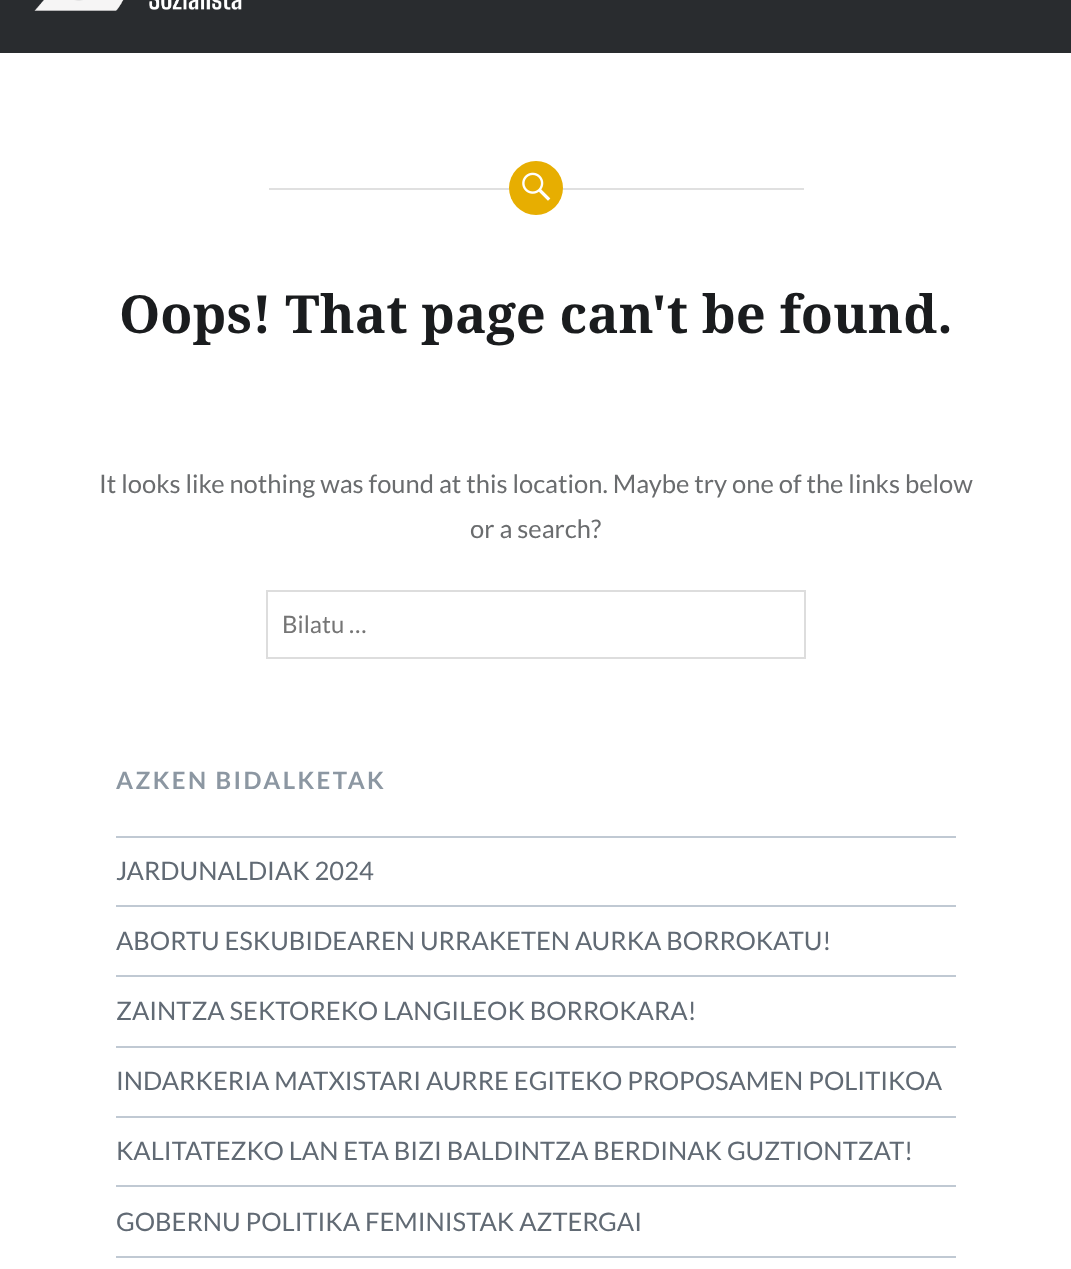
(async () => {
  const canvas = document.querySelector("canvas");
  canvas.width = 1071;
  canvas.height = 1269;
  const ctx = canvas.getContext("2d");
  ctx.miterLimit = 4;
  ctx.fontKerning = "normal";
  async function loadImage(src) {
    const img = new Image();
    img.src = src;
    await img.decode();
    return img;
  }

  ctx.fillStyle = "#ffffff";
  ctx.fillRect(0, 0, 1071, 1269);
  ctx.fillStyle = "#292c2f";
  ctx.fillRect(0, 0, 1071, 53);
  ctx.drawImage(await loadImage("img/1.png"), 34, 0, 208, 11);
  ctx.fillStyle = "#e0e0e0";
  ctx.fillRect(269, 188, 535, 2);
  ctx.fillStyle = "#e7ae01";
  ctx.beginPath();
  ctx.arc(536, 188, 27, 0, Math.PI * 2);
  ctx.fill();
  ctx.drawImage(await loadImage("img/2.png"), 522, 172, 29, 29);
  ctx.strokeStyle = "#dddddd";
  ctx.lineWidth = 2;
  ctx.strokeRect(267, 591, 538, 67);
  for (const [x, y, w, h, color] of [
    [116, 836, 840, 2, "#c0c9d3"],
    [116, 905, 840, 2, "#c0c9d3"],
    [116, 975, 840, 2, "#c0c9d3"],
    [116, 1046, 840, 2, "#c0c9d3"],
    [116, 1116, 840, 2, "#c0c9d3"],
    [116, 1185, 840, 2, "#c0c9d3"],
    [116, 1256, 840, 2, "#c0c9d3"],
  ]) {
    ctx.fillStyle = color;
    ctx.fillRect(x, y, w, h);
  }
  ctx.font = "bold 52.5px Noto Serif";
  ctx.fillStyle = "#1a1c1e";
  ctx.fillText("Oops! That page can't be found.", 119, 333);
  ctx.font = "25.5px Lato";
  ctx.fillStyle = "#6a6c6e";
  ctx.fillText("It looks like nothing was found at this location. Maybe try one of the links below", 99, 493);
  ctx.fillText("or a search?", 470, 538);
  ctx.font = "24px Lato";
  ctx.fillStyle = "#757575";
  ctx.fillText("Bilatu …", 282, 633);
  ctx.letterSpacing = "2.4px";
  ctx.font = "bold 24px Lato";
  ctx.fillStyle = "#8c97a2";
  ctx.fillText("AZKEN BIDALKETAK", 116, 789);
  ctx.letterSpacing = "0px";
  ctx.font = "25.5px Lato";
  ctx.fillStyle = "#616a74";
  for (const [text, x, y] of [
    ["JARDUNALDIAK 2024", 116, 880],
    ["ABORTU ESKUBIDEAREN URRAKETEN AURKA BORROKATU!", 116, 950],
    ["ZAINTZA SEKTOREKO LANGILEOK BORROKARA!", 116, 1020],
    ["INDARKERIA MATXISTARI AURRE EGITEKO PROPOSAMEN POLITIKOA", 116, 1090],
    ["KALITATEZKO LAN ETA BIZI BALDINTZA BERDINAK GUZTIONTZAT!", 116, 1160],
    ["GOBERNU POLITIKA FEMINISTAK AZTERGAI", 116, 1231],
  ]) {
    ctx.fillText(text, x, y);
  }
})();
